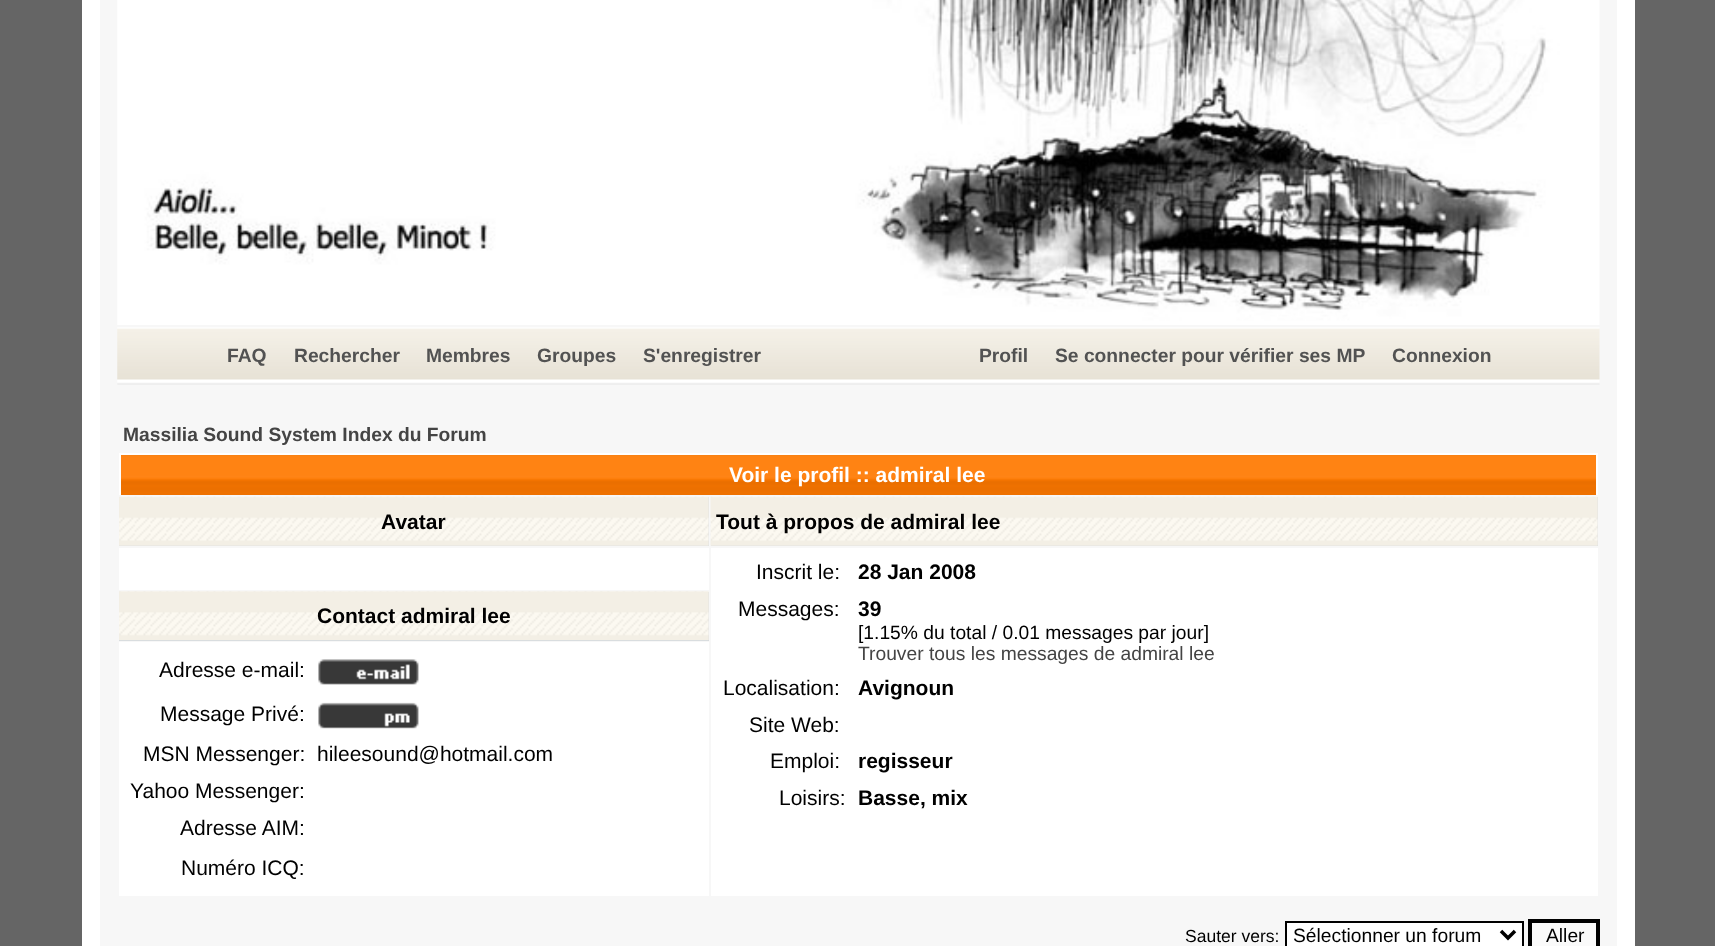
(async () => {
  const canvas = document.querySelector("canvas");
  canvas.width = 1715;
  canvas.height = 946;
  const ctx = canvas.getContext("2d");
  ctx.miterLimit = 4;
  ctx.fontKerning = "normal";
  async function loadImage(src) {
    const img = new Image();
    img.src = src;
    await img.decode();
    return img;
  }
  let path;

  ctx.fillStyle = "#656565";
  ctx.fillRect(0, 0, 1715, 946);
  ctx.fillStyle = "#f7f7f7";
  ctx.beginPath();
  ctx.rect(91, -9, 1535, 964);
  ctx.fill();
  ctx.strokeStyle = "#ffffff";
  ctx.lineWidth = 18;
  ctx.stroke();
  ctx.drawImage(await loadImage("img/1.png"), 117, 0, 1483, 325);
  ctx.drawImage(await loadImage("img/2.png"), 117, 327, 1483, 58);
  ctx.drawImage(await loadImage("img/3.png"), 121, 455, 1475, 40);
  for (const [x, y, w, h, color] of [
    [119, 453, 1479, 2, "#ffffff"],
    [1596, 453, 2, 42, "#ffffff"],
    [119, 453, 2, 42, "#ffffff"],
    [119, 497, 590, 49, "#d1d7dc"],
  ]) {
    ctx.fillStyle = color;
    ctx.fillRect(x, y, w, h);
  }
  ctx.drawImage(await loadImage("img/4.png"), 119, 496, 590, 50);
  ctx.fillRect(711, 497, 887, 49);
  ctx.drawImage(await loadImage("img/5.png"), 710, 496, 888, 50);
  ctx.fillRect(119, 592, 590, 49);
  ctx.drawImage(await loadImage("img/6.png"), 119, 591, 590, 50);
  for (const [x, y, w, h, color] of [
    [119, 548, 590, 42, "#ffffff"],
    [711, 548, 887, 348, "#ffffff"],
    [119, 642, 590, 254, "#ffffff"],
  ]) {
    ctx.fillStyle = color;
    ctx.fillRect(x, y, w, h);
  }
  ctx.drawImage(await loadImage("img/7.png"), 318, 659, 101, 26);
  ctx.drawImage(await loadImage("img/8.png"), 318, 702, 101, 27);
  ctx.beginPath();
  ctx.rect(1286, 922, 237, 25);
  ctx.fill();
  ctx.strokeStyle = "#000000";
  ctx.lineWidth = 2;
  ctx.stroke();
  path = new Path2D("M1501 931L1508 938L1515 931");
  ctx.lineWidth = 3.5;
  ctx.stroke(path);
  ctx.fillStyle = "#fafafa";
  ctx.beginPath();
  ctx.rect(1530, 921, 68, 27);
  ctx.fill();
  ctx.lineWidth = 4;
  ctx.stroke();
  ctx.font = "bold 19.25px Liberation Sans";
  ctx.fillStyle = "#525252";
  for (const [text, x, y] of [
    ["FAQ", 227, 362],
    ["Rechercher", 294, 362],
    ["Membres", 426, 362],
    ["Groupes", 537, 362],
    ["S'enregistrer", 643, 362],
    ["Profil", 979, 362],
    ["Se connecter pour vérifier ses MP", 1055, 362],
    ["Connexion", 1392, 362],
  ]) {
    ctx.fillText(text, x, y);
  }
  ctx.fillStyle = "#444444";
  ctx.fillText("Massilia Sound System Index du Forum", 123, 441);
  ctx.font = "bold 21px Liberation Sans";
  ctx.fillStyle = "#ffffff";
  ctx.fillText("Voir le profil :: admiral lee", 729, 482);
  ctx.fillStyle = "#000000";
  for (const [text, x, y] of [
    ["Avatar", 381, 529],
    ["Tout à propos de admiral lee", 716, 529],
    ["Contact admiral lee", 317, 623],
  ]) {
    ctx.fillText(text, x, y);
  }
  ctx.font = "21px Liberation Sans";
  ctx.fillText("Inscrit le:", 756, 579);
  ctx.font = "bold 21px Liberation Sans";
  ctx.fillText("28 Jan 2008", 858, 579);
  ctx.font = "21px Liberation Sans";
  ctx.fillText("Messages:", 738, 616);
  ctx.font = "bold 21px Liberation Sans";
  ctx.fillText("39", 858, 616);
  ctx.font = "19.25px Liberation Sans";
  ctx.fillText("[1.15% du total / 0.01 messages par jour]", 858, 639);
  ctx.fillStyle = "#444444";
  ctx.fillText("Trouver tous les messages de admiral lee", 858, 660);
  ctx.font = "21px Liberation Sans";
  ctx.fillStyle = "#000000";
  ctx.fillText("Localisation:", 723, 695);
  ctx.font = "bold 21px Liberation Sans";
  ctx.fillText("Avignoun", 858, 695);
  ctx.font = "21px Liberation Sans";
  ctx.fillText("Site Web:", 749, 732);
  ctx.fillText("Emploi:", 770, 768);
  ctx.font = "bold 21px Liberation Sans";
  ctx.fillText("regisseur", 858, 768);
  ctx.font = "21px Liberation Sans";
  ctx.fillText("Loisirs:", 779, 805);
  ctx.font = "bold 21px Liberation Sans";
  ctx.fillText("Basse, mix", 858, 805);
  ctx.font = "21px Liberation Sans";
  for (const [text, x, y] of [
    ["Adresse e-mail:", 159, 677],
    ["Message Privé:", 160, 721],
    ["MSN Messenger:", 143, 761],
    ["hileesound@hotmail.com", 317, 761],
    ["Yahoo Messenger:", 130, 798],
    ["Adresse AIM:", 180, 835],
    ["Numéro ICQ:", 181, 875],
  ]) {
    ctx.fillText(text, x, y);
  }
  ctx.font = "17.5px Liberation Sans";
  ctx.fillText("Sauter vers:", 1185, 942);
  ctx.font = "19.25px Liberation Sans";
  ctx.fillText("Sélectionner un forum", 1293, 942);
  ctx.fillText("Aller", 1546, 942);
})();
